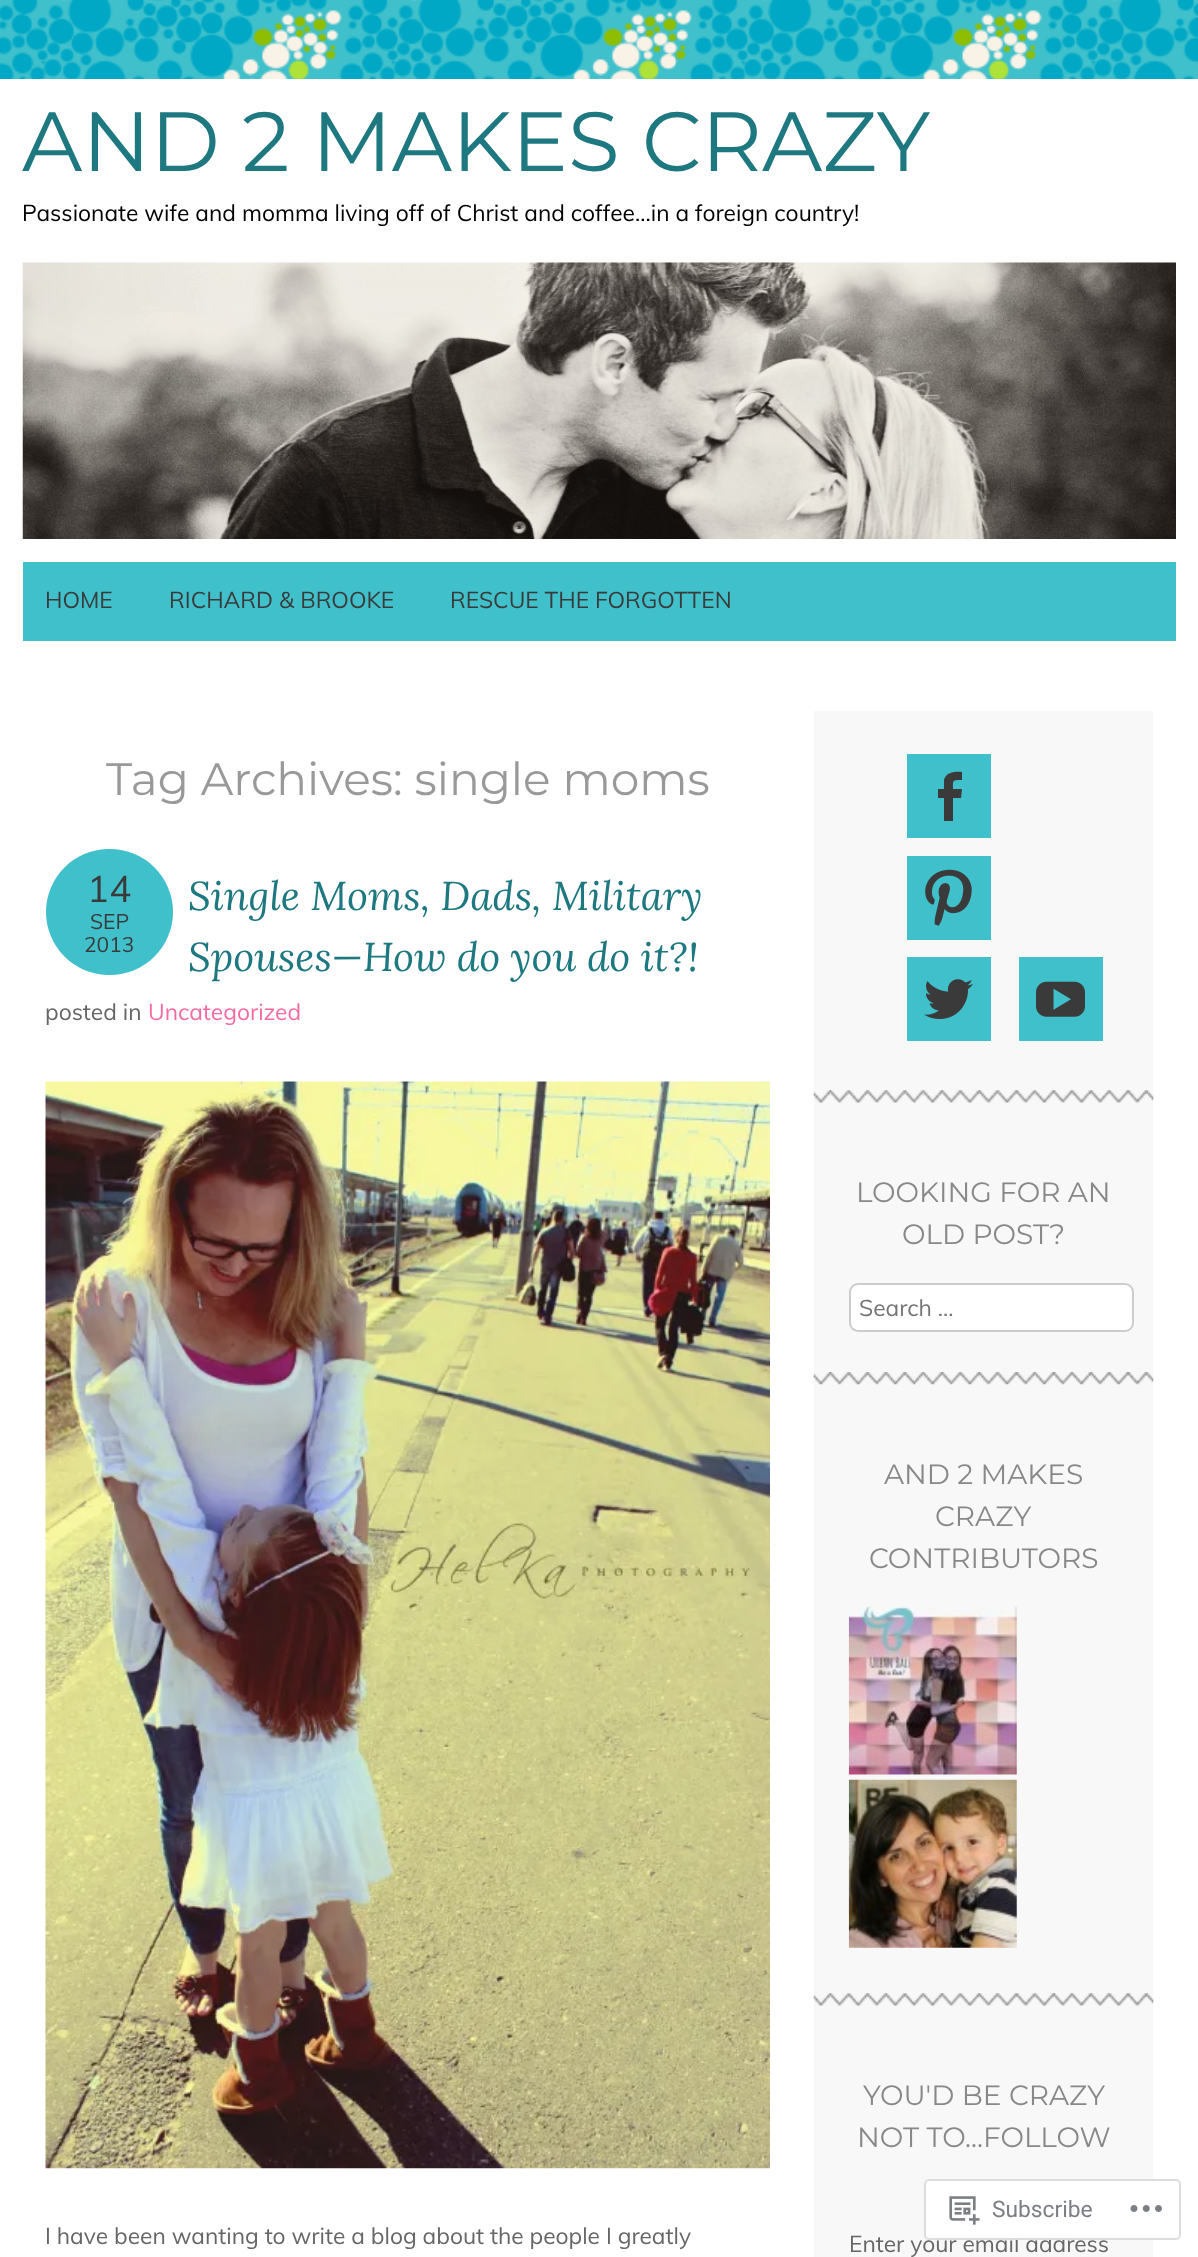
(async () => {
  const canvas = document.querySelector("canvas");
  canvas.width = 1198;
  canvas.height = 2257;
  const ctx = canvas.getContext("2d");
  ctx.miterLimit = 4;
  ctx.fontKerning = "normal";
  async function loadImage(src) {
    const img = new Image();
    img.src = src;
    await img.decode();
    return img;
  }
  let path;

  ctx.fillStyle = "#ffffff";
  ctx.fillRect(0, 0, 1198, 2257);
  ctx.drawImage(await loadImage("img/1.png"), 0, 0, 1198, 79);
  ctx.drawImage(await loadImage("img/2.png"), 22, 262, 1154, 277);
  ctx.fillStyle = "#40c0cb";
  ctx.fillRect(23, 562, 1153, 79);
  ctx.beginPath();
  ctx.roundRect(46, 849, 127, 126, 63);
  ctx.fill();
  ctx.drawImage(await loadImage("img/3.png"), 45, 1081, 725, 1088);
  ctx.fillStyle = "#f8f8f8";
  ctx.fillRect(814, 711, 339, 1546);
  ctx.drawImage(await loadImage("img/4.png"), 813, 1090, 341, 13);
  ctx.fillStyle = "#40c0cb";
  ctx.fillRect(907, 754, 84, 84);
  ctx.fillStyle = "#3a3a3a";
  path = new Path2D("M953 789H962L961 798H953V821H944V798H938V789H944V780C946 772 955 771 962 772V780C952 780 953 780 953 789Z");
  ctx.fill(path);
  ctx.fillStyle = "#40c0cb";
  ctx.fillRect(907, 856, 84, 84);
  ctx.drawImage(await loadImage("img/5.png"), 925, 869, 47, 57);
  ctx.fillRect(907, 957, 84, 84);
  ctx.drawImage(await loadImage("img/6.png"), 924, 979, 49, 40);
  ctx.fillRect(1019, 957, 84, 84);
  ctx.drawImage(await loadImage("img/7.png"), 1036, 981, 49, 36);
  ctx.drawImage(await loadImage("img/8.png"), 813, 1372, 341, 13);
  ctx.fillStyle = "#ffffff";
  ctx.beginPath();
  ctx.roundRect(850, 1284, 283, 47, 8);
  ctx.fill();
  ctx.strokeStyle = "#cccccc";
  ctx.lineWidth = 2;
  ctx.stroke();
  ctx.drawImage(await loadImage("img/4.png"), 813, 1993, 341, 13);
  ctx.drawImage(await loadImage("img/9.png"), 848, 1606, 169, 169);
  ctx.drawImage(await loadImage("img/10.png"), 848, 1779, 169, 169);
  ctx.font = "84px Montserrat";
  ctx.fillStyle = "#1d7880";
  ctx.fillText("AND 2 MAKES CRAZY", 22, 171);
  ctx.font = "22.75px Muli";
  ctx.fillStyle = "#000000";
  ctx.fillText("Passionate wife and momma living off of Christ and coffee…in a foreign country!", 22, 221);
  ctx.fillStyle = "#3a3a3a";
  for (const [text, x, y] of [
    ["HOME", 45, 608],
    ["RICHARD & BROOKE", 169, 608],
    ["RESCUE THE FORGOTTEN", 450, 608],
  ]) {
    ctx.fillText(text, x, y);
  }
  ctx.font = "45.5px Montserrat";
  ctx.fillStyle = "#999999";
  ctx.fillText("Tag Archives: single moms", 106, 795);
  ctx.font = "37px Muli";
  ctx.fillStyle = "#3a3a3a";
  ctx.fillText("14", 87, 902);
  ctx.font = "21px Muli";
  ctx.fillText("SEP", 90, 929);
  ctx.fillText("2013", 84, 952);
  ctx.font = "italic 40.25px Lora";
  ctx.fillStyle = "#1d7880";
  ctx.fillText("Single Moms, Dads, Military", 188, 910);
  ctx.fillText("Spouses—How do you do it?!", 188, 971);
  ctx.font = "22.75px Muli";
  ctx.fillStyle = "#666666";
  ctx.fillText("posted in", 45, 1020);
  ctx.fillStyle = "#f46ba4";
  ctx.fillText("Uncategorized", 148, 1020);
  ctx.fillStyle = "#666666";
  ctx.fillText("I have been wanting to write a blog about the people I greatly", 45, 2244);
  ctx.font = "28px Montserrat";
  ctx.fillStyle = "#888888";
  ctx.fillText("LOOKING FOR AN", 856, 1202);
  ctx.fillText("OLD POST?", 902, 1244);
  ctx.font = "22.75px Muli";
  ctx.fillStyle = "#757575";
  ctx.fillText("Search …", 859, 1316);
  ctx.font = "28px Montserrat";
  ctx.fillStyle = "#888888";
  for (const [text, x, y] of [
    ["AND 2 MAKES", 884, 1484],
    ["CRAZY", 935, 1526],
    ["CONTRIBUTORS", 869, 1568],
    ["YOU'D BE CRAZY", 863, 2105],
    ["NOT TO...FOLLOW", 857, 2147],
  ]) {
    ctx.fillText(text, x, y);
  }
  ctx.font = "22.75px Muli";
  ctx.fillStyle = "#666666";
  ctx.fillText("Enter your email address", 849, 2252);
  ctx.fillStyle = "rgba(255, 255, 255, 0.98)";
  ctx.beginPath();
  ctx.roundRect(924, 2179, 257, 61, 5);
  ctx.fill();
  ctx.beginPath();
  ctx.roundRect(925, 2180, 255, 59, 4);
  ctx.strokeStyle = "rgba(220, 220, 222, 0.98)";
  ctx.stroke();
  ctx.drawImage(await loadImage("img/11.png"), 949, 2196, 31, 29);
  ctx.font = "22.75px Roboto";
  ctx.fillStyle = "#7b7e84";
  ctx.fillText("Subscribe", 992, 2217);
  ctx.drawImage(await loadImage("img/12.png"), 1130, 2205, 32, 7);
})();
